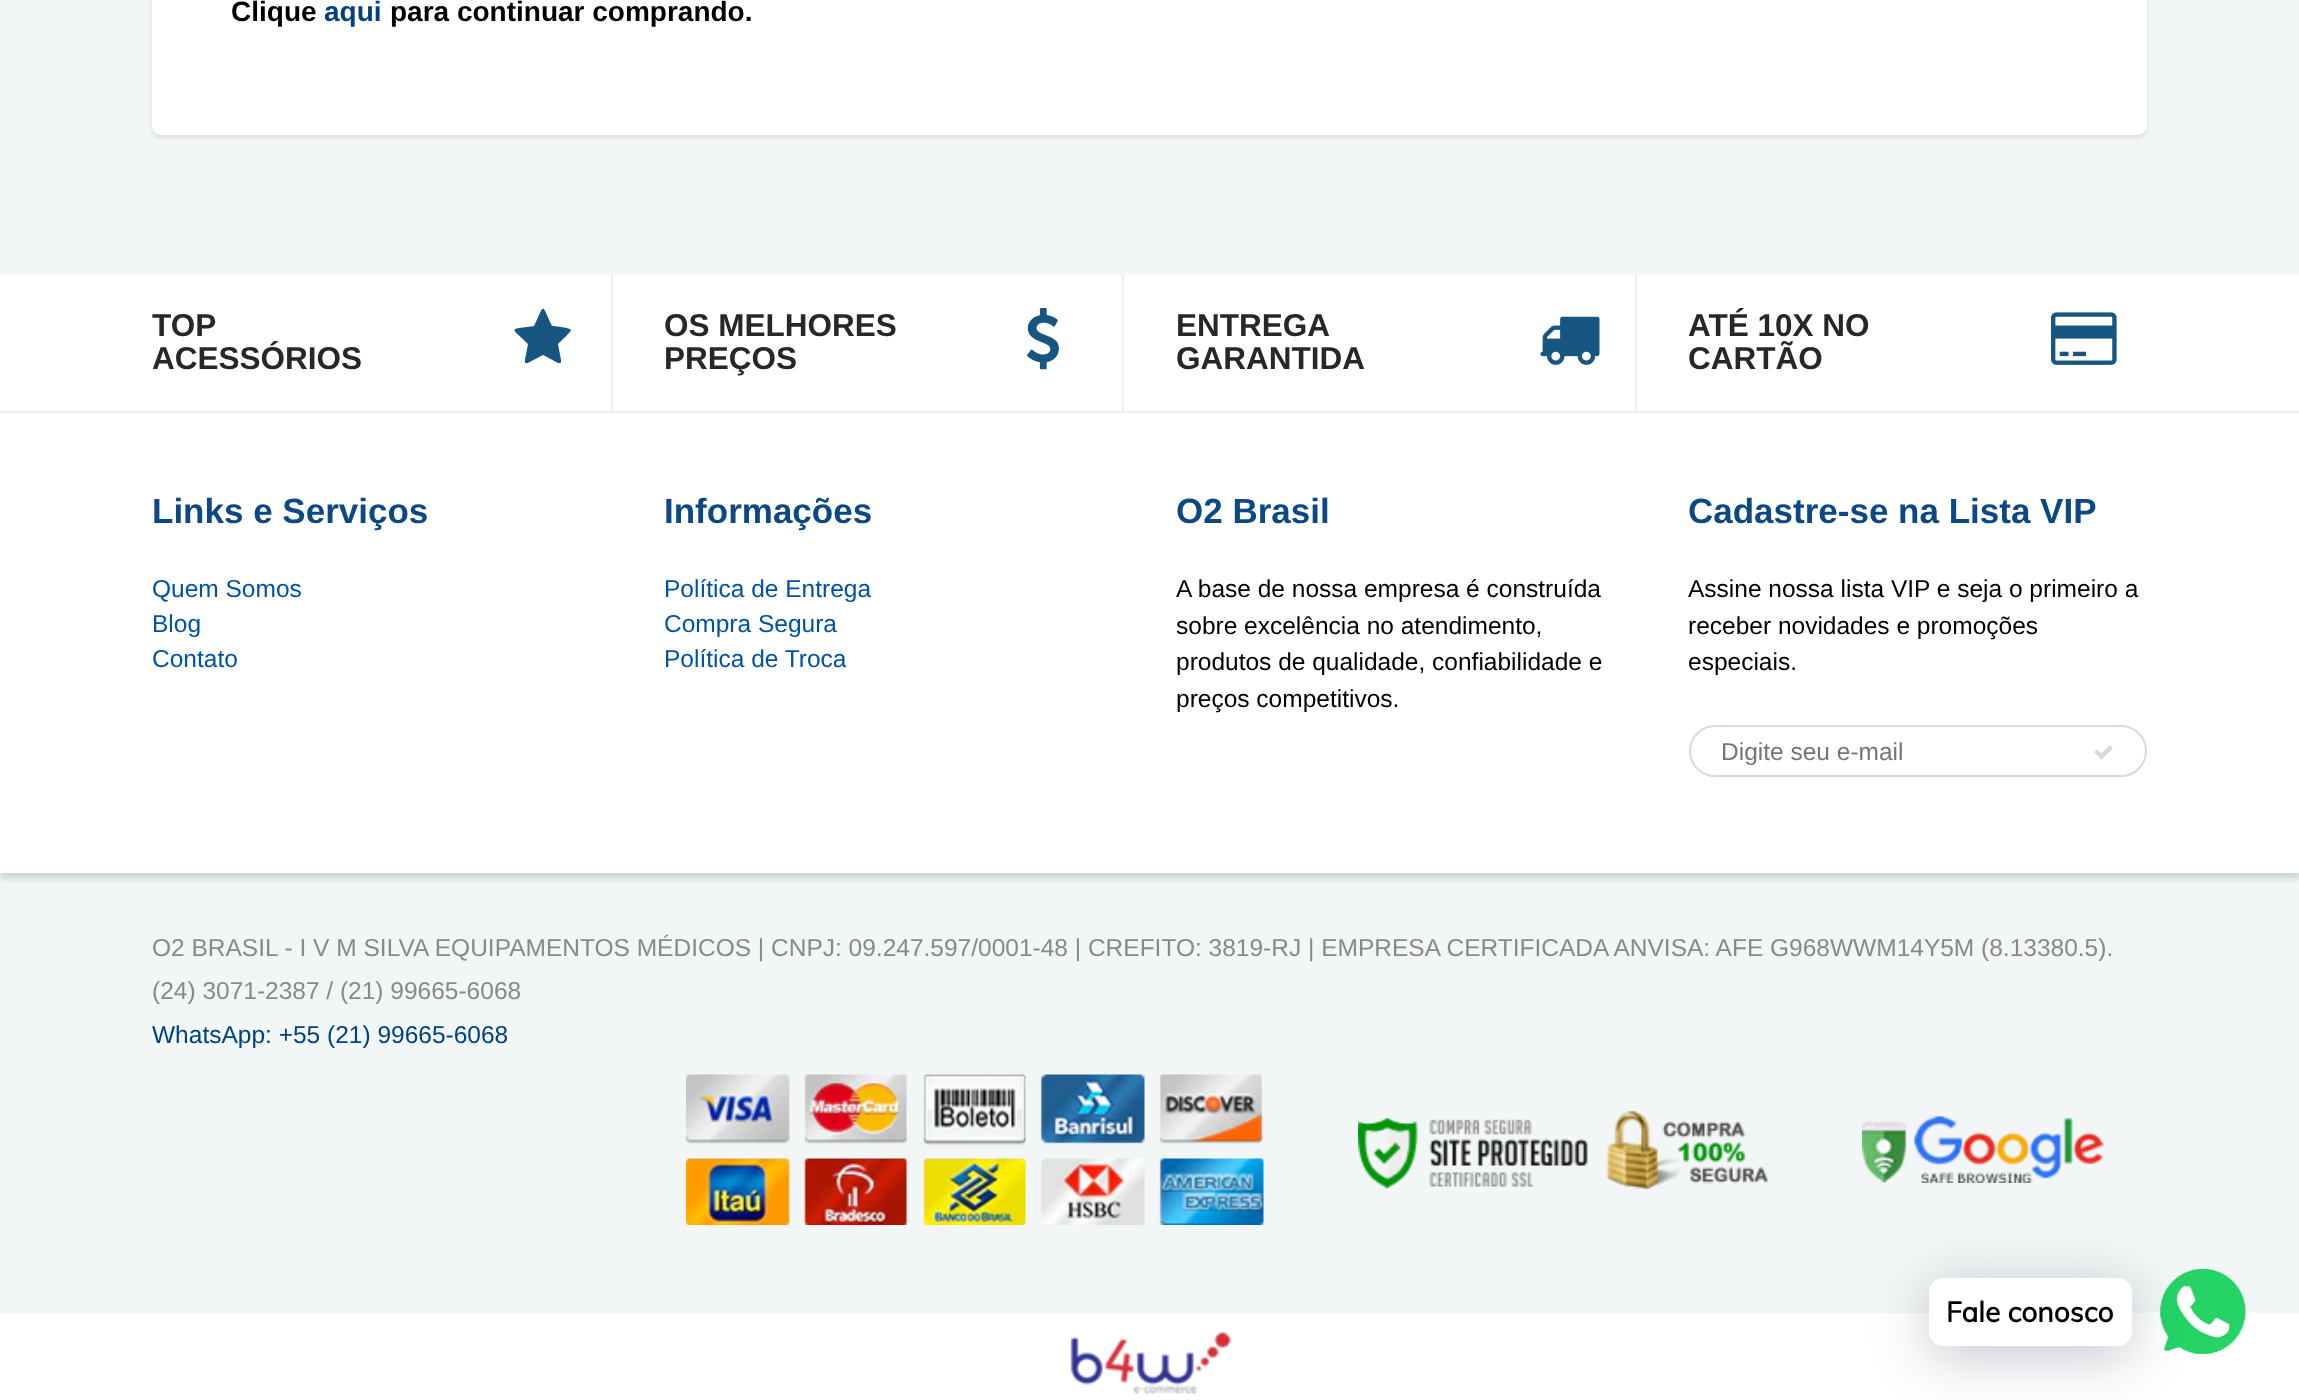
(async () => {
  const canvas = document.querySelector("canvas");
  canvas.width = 2299;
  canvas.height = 1400;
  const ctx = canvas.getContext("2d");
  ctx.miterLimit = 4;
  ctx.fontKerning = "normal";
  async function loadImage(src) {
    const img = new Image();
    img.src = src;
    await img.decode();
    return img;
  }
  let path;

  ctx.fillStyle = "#ffffff";
  ctx.fillRect(0, 0, 2299, 1400);
  ctx.fillStyle = "#f3f6f6";
  ctx.fillRect(0, 0, 2299, 275);
  ctx.fillStyle = "rgba(11, 25, 28, 0.1)";
  ctx.filter = "blur(2px)";
  ctx.beginPath();
  ctx.roundRect(152, -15, 1995, 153, 9);
  ctx.fill();
  ctx.filter = "none";
  ctx.fillStyle = "#ffffff";
  ctx.beginPath();
  ctx.roundRect(152, -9, 1995, 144, 9);
  ctx.fill();
  ctx.fillStyle = "#ecefef";
  ctx.fillRect(611, 275, 2, 136);
  ctx.fillStyle = "#165680";
  path = new Path2D("M571 330C571 332 560 342 558 344C562 368 566 367 543 355C520 367 524 368 528 344C510 326 508 330 534 326C545 303 541 303 552 326C555 326 571 328 571 330Z");
  ctx.fill(path);
  ctx.fillStyle = "#ecefef";
  ctx.fillRect(1122, 275, 2, 136);
  ctx.drawImage(await loadImage("img/1.png"), 1027, 308, 32, 62);
  ctx.fillRect(1635, 275, 2, 136);
  ctx.drawImage(await loadImage("img/2.png"), 1540, 316, 60, 49);
  ctx.drawImage(await loadImage("img/3.png"), 2051, 312, 66, 53);
  ctx.fillStyle = "#f3f6f6";
  ctx.fillRect(0, 873, 2299, 440);
  ctx.save();
  ctx.beginPath();
  ctx.rect(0, 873, 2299, 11);
  ctx.clip();
  ctx.fillStyle = "#d1d7d7";
  ctx.filter = "blur(2.5px)";
  ctx.beginPath();
  ctx.rect(0, 417, 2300, 462);
  ctx.fill();
  ctx.filter = "none";
  ctx.restore();
  ctx.fillStyle = "#ecefef";
  ctx.fillRect(0, 411, 2299, 2);
  ctx.beginPath();
  ctx.roundRect(1690, 726, 456, 50, 25);
  ctx.strokeStyle = "#d7dbdb";
  ctx.lineWidth = 2;
  ctx.stroke();
  ctx.drawImage(await loadImage("img/4.png"), 2094, 745, 19, 15);
  ctx.drawImage(await loadImage("img/5.png"), 686, 1074, 578, 151);
  ctx.drawImage(await loadImage("img/6.png"), 1358, 1111, 410, 79);
  ctx.drawImage(await loadImage("img/7.png"), 1862, 1116, 242, 67);
  ctx.drawImage(await loadImage("img/8.png"), 1070, 1331, 162, 64);
  ctx.drawImage(await loadImage("img/9.png"), 2146, 1268, 110, 86);
  ctx.fillStyle = "rgba(0, 18, 46, 0.24)";
  ctx.filter = "blur(28px)";
  ctx.beginPath();
  ctx.roundRect(1929, 1288, 203, 68, 14);
  ctx.fill();
  ctx.filter = "none";
  ctx.fillStyle = "#ffffff";
  ctx.beginPath();
  ctx.roundRect(1929, 1278, 203, 68, 14);
  ctx.fill();
  ctx.font = "bold 28px Arimo";
  ctx.fillStyle = "#000000";
  ctx.fillText("Clique", 231, 21);
  ctx.fillStyle = "#004180";
  ctx.fillText("aqui", 324, 21);
  ctx.fillStyle = "#000000";
  ctx.fillText("para continuar comprando.", 390, 21);
  ctx.font = "bold 31.5px Arimo";
  ctx.fillStyle = "#282727";
  for (const [text, x, y] of [
    ["TOP", 152, 336],
    ["ACESSÓRIOS", 152, 369],
    ["OS MELHORES", 664, 336],
    ["PREÇOS", 664, 369],
    ["ENTREGA", 1176, 336],
    ["GARANTIDA", 1176, 369],
    ["ATÉ 10X NO", 1688, 336],
    ["CARTÃO", 1688, 369],
  ]) {
    ctx.fillText(text, x, y);
  }
  ctx.font = "bold 35px Arimo";
  ctx.fillStyle = "#0c4883";
  ctx.fillText("Links e Serviços", 152, 523);
  ctx.font = "24.5px Arimo";
  ctx.fillStyle = "#0051a8";
  for (const [text, x, y] of [
    ["Quem Somos", 152, 597],
    ["Blog", 152, 632],
    ["Contato", 152, 667],
  ]) {
    ctx.fillText(text, x, y);
  }
  ctx.font = "bold 35px Arimo";
  ctx.fillStyle = "#0c4883";
  ctx.fillText("Informações", 664, 523);
  ctx.font = "24.5px Arimo";
  ctx.fillStyle = "#0051a8";
  for (const [text, x, y] of [
    ["Política de Entrega", 664, 597],
    ["Compra Segura", 664, 632],
    ["Política de Troca", 664, 667],
  ]) {
    ctx.fillText(text, x, y);
  }
  ctx.font = "bold 35px Arimo";
  ctx.fillStyle = "#0c4883";
  ctx.fillText("O2 Brasil", 1176, 523);
  ctx.font = "24.5px Arimo";
  ctx.fillStyle = "#000000";
  for (const [text, x, y] of [
    ["A base de nossa empresa é construída", 1176, 597],
    ["sobre excelência no atendimento,", 1176, 634],
    ["produtos de qualidade, confiabilidade e", 1176, 670],
    ["preços competitivos.", 1176, 707],
  ]) {
    ctx.fillText(text, x, y);
  }
  ctx.font = "bold 35px Arimo";
  ctx.fillStyle = "#0c4883";
  ctx.fillText("Cadastre-se na Lista VIP", 1688, 523);
  ctx.font = "24.5px Arimo";
  ctx.fillStyle = "#000000";
  for (const [text, x, y] of [
    ["Assine nossa lista VIP e seja o primeiro a", 1688, 597],
    ["receber novidades e promoções", 1688, 634],
    ["especiais.", 1688, 670],
  ]) {
    ctx.fillText(text, x, y);
  }
  ctx.fillStyle = "#757575";
  ctx.fillText("Digite seu e-mail", 1721, 760);
  ctx.fillStyle = "#898989";
  ctx.fillText("O2 BRASIL - I V M SILVA EQUIPAMENTOS MÉDICOS | CNPJ: 09.247.597/0001-48 | CREFITO: 3819-RJ | EMPRESA CERTIFICADA ANVISA: AFE G968WWM14Y5M (8.13380.5).", 152, 956);
  ctx.fillText("(24) 3071-2387 / (21) 99665-6068", 152, 999);
  ctx.fillStyle = "#004180";
  ctx.fillText("WhatsApp: +55 (21) 99665-6068", 152, 1043);
  ctx.font = "bold 28px Muli";
  ctx.fillStyle = "#000000";
  ctx.fillText("Fale conosco", 1946, 1322);
})();
